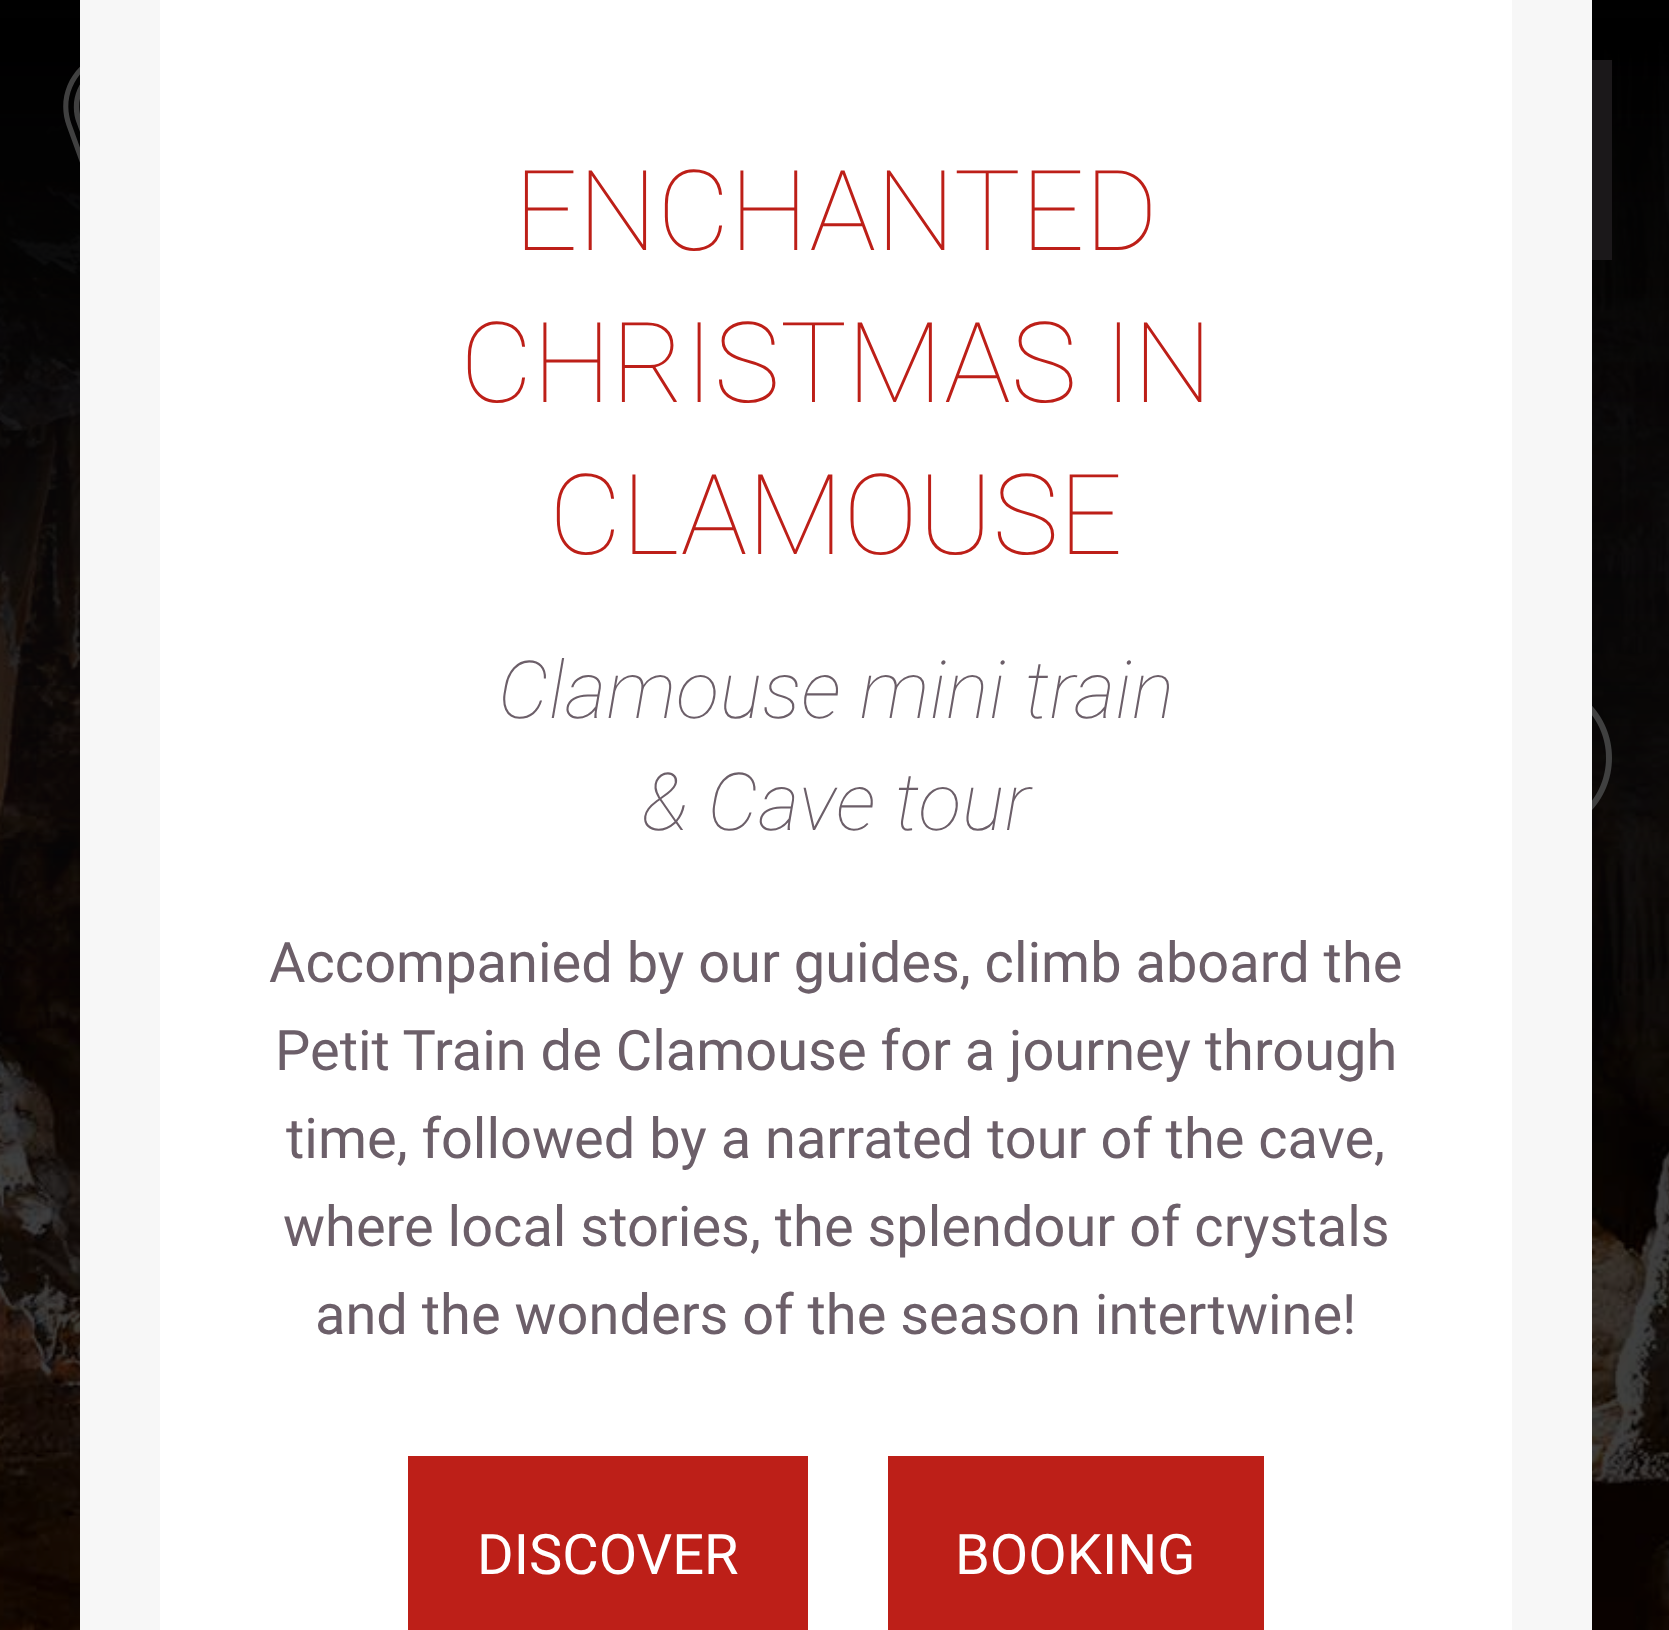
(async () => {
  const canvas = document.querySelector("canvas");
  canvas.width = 1669;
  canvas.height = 1630;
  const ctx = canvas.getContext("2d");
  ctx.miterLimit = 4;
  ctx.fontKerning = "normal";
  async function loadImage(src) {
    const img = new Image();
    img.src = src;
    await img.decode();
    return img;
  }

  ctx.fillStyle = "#ffffff";
  ctx.fillRect(0, 0, 1669, 1630);
  ctx.drawImage(await loadImage("img/3.png"), 0, 18, 1669, 1612);
  ctx.drawImage(await loadImage("img/1.png"), 0, 0, 1669, 1170);
  ctx.drawImage(await loadImage("img/2.png"), 1592, 705, 20, 105);
  ctx.drawImage(await loadImage("img/4.png"), 63, 66, 17, 97);
  ctx.fillStyle = "#1b181a";
  ctx.fillRect(1592, 60, 20, 200);
  ctx.fillStyle = "#ffffff";
  ctx.beginPath();
  ctx.rect(120, -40, 1432, 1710);
  ctx.fill();
  ctx.strokeStyle = "#f7f7f7";
  ctx.lineWidth = 80;
  ctx.stroke();
  ctx.fillStyle = "#bd1f18";
  ctx.fillRect(408, 1456, 400, 174);
  ctx.fillRect(888, 1456, 376, 174);
  ctx.font = "100 112px Roboto";
  for (const [text, x, y] of [
    ["ENCHANTED", 514, 250],
    ["CHRISTMAS IN", 460, 402],
    ["CLAMOUSE", 549, 554],
  ]) {
    ctx.fillText(text, x, y);
  }
  ctx.font = "italic 100 80px Roboto";
  ctx.fillStyle = "#6c5f69";
  ctx.fillText("Clamouse mini train", 498, 718);
  ctx.fillText("& Cave tour", 641, 830);
  ctx.font = "56px Roboto";
  for (const [text, x, y] of [
    ["Accompanied by our guides, climb aboard the", 269, 982],
    ["Petit Train de Clamouse for a journey through", 275, 1070],
    ["time, followed by a narrated tour of the cave,", 286, 1158],
    ["where local stories, the splendour of crystals", 283, 1246],
    ["and the wonders of the season intertwine!", 315, 1334],
  ]) {
    ctx.fillText(text, x, y);
  }
  ctx.fillStyle = "#ffffff";
  ctx.fillText("DISCOVER", 477, 1574);
  ctx.fillText("BOOKING", 955, 1574);
})();
